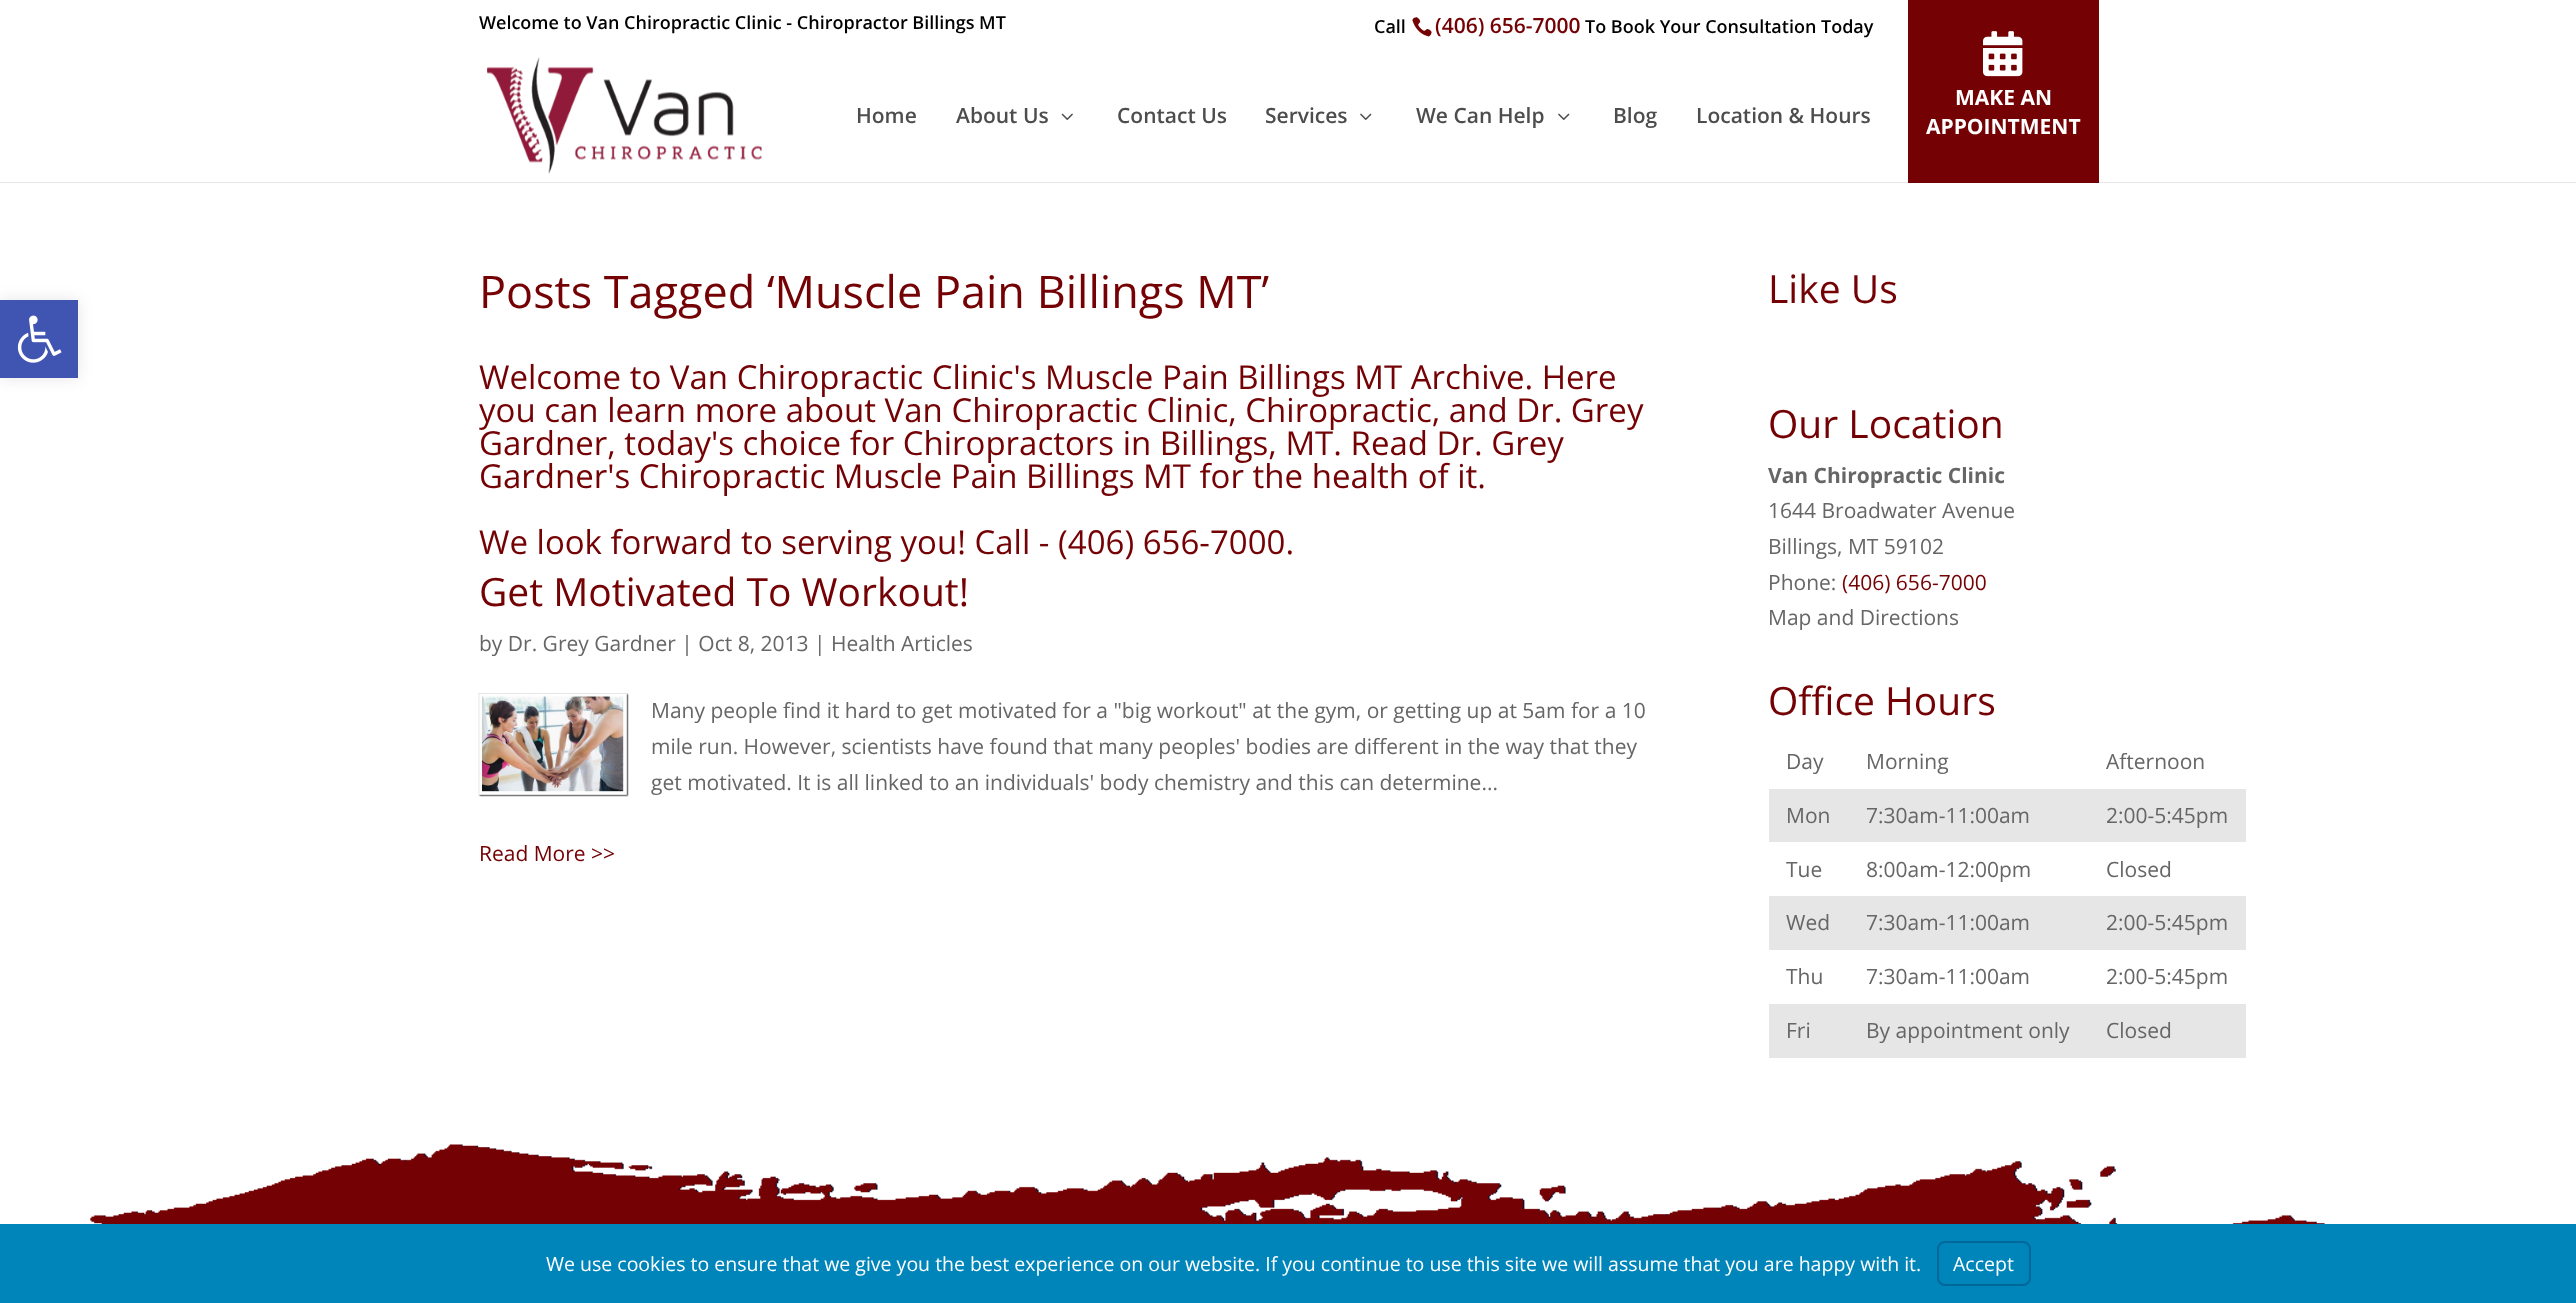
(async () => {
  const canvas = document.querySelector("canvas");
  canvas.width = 2576;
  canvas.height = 1303;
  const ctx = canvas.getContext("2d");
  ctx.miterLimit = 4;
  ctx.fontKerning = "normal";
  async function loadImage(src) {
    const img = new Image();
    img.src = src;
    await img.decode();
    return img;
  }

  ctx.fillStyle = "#ffffff";
  ctx.fillRect(0, 0, 2576, 1303);
  ctx.drawImage(await loadImage("img/1.png"), 1412, 17, 20, 20);
  ctx.fillStyle = "#e6e6e6";
  ctx.fillRect(0, 182, 2576, 1);
  ctx.drawImage(await loadImage("img/2.png"), 487, 57, 275, 117);
  ctx.drawImage(await loadImage("img/3.png"), 1061, 113, 12, 7);
  ctx.drawImage(await loadImage("img/4.png"), 1360, 113, 12, 7);
  ctx.drawImage(await loadImage("img/4.png"), 1558, 113, 12, 7);
  ctx.fillStyle = "#740104";
  ctx.fillRect(1908, 0, 191, 183);
  ctx.drawImage(await loadImage("img/5.png"), 1983, 31, 40, 46);
  ctx.fillStyle = "rgba(0, 0, 0, 0.1)";
  ctx.filter = "blur(7.5px)";
  ctx.beginPath();
  ctx.rect(0, 300, 78, 78);
  ctx.fill();
  ctx.filter = "none";
  ctx.fillStyle = "#4054b2";
  ctx.fillRect(0, 300, 78, 78);
  ctx.drawImage(await loadImage("img/6.png"), 17, 315, 45, 48);
  ctx.drawImage(await loadImage("img/7.png"), 478, 693, 151, 104);
  for (const [x, y, w, h, color] of [
    [1769, 789, 477, 53, "#e6e6e6"],
    [1769, 896, 477, 54, "#e6e6e6"],
    [1769, 1004, 477, 54, "#e6e6e6"],
  ]) {
    ctx.fillStyle = color;
    ctx.fillRect(x, y, w, h);
  }
  ctx.drawImage(await loadImage("img/8.png"), 90, 1144, 2235, 80);
  ctx.fillStyle = "#0085ba";
  ctx.fillRect(0, 1224, 2576, 79);
  ctx.beginPath();
  ctx.roundRect(1938, 1242, 92, 43, 7);
  ctx.strokeStyle = "#006799";
  ctx.lineWidth = 2;
  ctx.stroke();
  ctx.font = "600 18px Open Sans";
  ctx.fillStyle = "#000000";
  ctx.fillText("Welcome to Van Chiropractic Clinic - Chiropractor Billings MT", 479, 29);
  ctx.fillText("Call", 1374, 33);
  ctx.font = "600 21px Open Sans";
  ctx.fillStyle = "#740104";
  ctx.fillText("(406) 656-7000", 1435, 33);
  ctx.font = "600 18px Open Sans";
  ctx.fillStyle = "#000000";
  ctx.fillText("To Book Your Consultation Today", 1585, 33);
  ctx.font = "600 21px Open Sans";
  ctx.fillStyle = "#4d4d4d";
  for (const [text, x, y] of [
    ["Home", 856, 123],
    ["About Us", 956, 123],
    ["Contact Us", 1117, 123],
    ["Services", 1265, 123],
    ["We Can Help", 1416, 123],
    ["Blog", 1613, 123],
    ["Location & Hours", 1696, 123],
  ]) {
    ctx.fillText(text, x, y);
  }
  ctx.font = "bold 21px Open Sans";
  ctx.fillStyle = "#ffffff";
  ctx.fillText("MAKE AN", 1955, 105);
  ctx.fillText("APPOINTMENT", 1926, 134);
  ctx.font = "45px Open Sans";
  ctx.fillStyle = "#740104";
  ctx.fillText("Posts Tagged ‘Muscle Pain Billings MT’", 479, 308);
  ctx.font = "33px Open Sans";
  for (const [text, x, y] of [
    ["Welcome to Van Chiropractic Clinic's Muscle Pain Billings MT Archive. Here", 479, 389],
    ["you can learn more about Van Chiropractic Clinic, Chiropractic, and Dr. Grey", 479, 422],
    ["Gardner, today's choice for Chiropractors in Billings, MT. Read Dr. Grey", 479, 455],
    ["Gardner's Chiropractic Muscle Pain Billings MT for the health of it.", 479, 488],
    ["We look forward to serving you! Call - (406) 656-7000.", 479, 554],
  ]) {
    ctx.fillText(text, x, y);
  }
  ctx.font = "39px Open Sans";
  ctx.fillText("Get Motivated To Workout!", 479, 606);
  ctx.font = "21px Open Sans";
  ctx.fillStyle = "#666666";
  for (const [text, x, y] of [
    ["by Dr. Grey Gardner | Oct 8, 2013 | Health Articles", 479, 651],
    ["Many people find it hard to get motivated for a \"big workout\" at the gym, or getting up at 5am for a 10", 651, 718],
    ["mile run. However, scientists have found that many peoples' bodies are different in the way that they", 651, 754],
    ["get motivated. It is all linked to an individuals' body chemistry and this can determine...", 651, 790],
  ]) {
    ctx.fillText(text, x, y);
  }
  ctx.fillStyle = "#740104";
  ctx.fillText("Read More >>", 479, 861);
  ctx.font = "39px Open Sans";
  ctx.fillText("Like Us", 1768, 303);
  ctx.fillText("Our Location", 1768, 438);
  ctx.font = "bold 21px Open Sans";
  ctx.fillStyle = "#666666";
  ctx.fillText("Van Chiropractic Clinic", 1768, 483);
  ctx.font = "21px Open Sans";
  for (const [text, x, y] of [
    ["1644 Broadwater Avenue", 1768, 518],
    ["Billings, MT 59102", 1768, 554],
    ["Phone:", 1768, 590],
  ]) {
    ctx.fillText(text, x, y);
  }
  ctx.fillStyle = "#740104";
  ctx.fillText("(406) 656-7000", 1842, 590);
  ctx.fillStyle = "#666666";
  ctx.fillText("Map and Directions", 1768, 625);
  ctx.font = "39px Open Sans";
  ctx.fillStyle = "#740104";
  ctx.fillText("Office Hours", 1768, 715);
  ctx.font = "21px Open Sans";
  ctx.fillStyle = "#666666";
  for (const [text, x, y] of [
    ["Day", 1786, 769],
    ["Morning", 1866, 769],
    ["Afternoon", 2106, 769],
    ["Mon", 1786, 823],
    ["7:30am-11:00am", 1866, 823],
    ["2:00-5:45pm", 2106, 823],
    ["Tue", 1786, 877],
    ["8:00am-12:00pm", 1866, 877],
    ["Closed", 2106, 877],
    ["Wed", 1786, 930],
    ["7:30am-11:00am", 1866, 930],
    ["2:00-5:45pm", 2106, 930],
    ["Thu", 1786, 984],
    ["7:30am-11:00am", 1866, 984],
    ["2:00-5:45pm", 2106, 984],
    ["Fri", 1786, 1038],
    ["By appointment only", 1866, 1038],
    ["Closed", 2106, 1038],
  ]) {
    ctx.fillText(text, x, y);
  }
  ctx.font = "19.5px Open Sans";
  ctx.fillStyle = "#ffffff";
  ctx.fillText("We use cookies to ensure that we give you the best experience on our website. If you continue to use this site we will assume that you are happy with it.", 546, 1271);
  ctx.fillText("Accept", 1953, 1271);
})();
